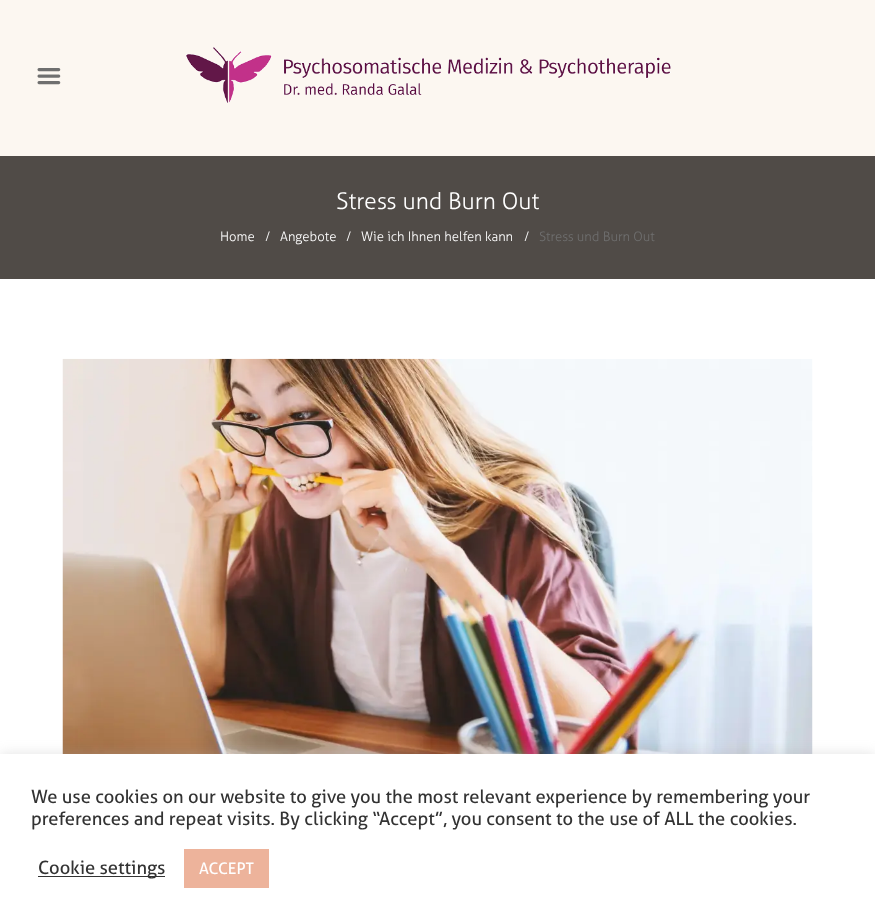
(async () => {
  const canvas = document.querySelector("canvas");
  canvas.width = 875;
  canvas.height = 924;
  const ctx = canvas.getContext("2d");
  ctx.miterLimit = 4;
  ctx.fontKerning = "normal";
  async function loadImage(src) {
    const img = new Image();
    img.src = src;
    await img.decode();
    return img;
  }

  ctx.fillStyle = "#ffffff";
  ctx.fillRect(0, 0, 875, 924);
  ctx.fillStyle = "#fcf7f1";
  ctx.fillRect(0, 0, 875, 156);
  ctx.drawImage(await loadImage("img/1.png"), 37, 68, 24, 17);
  ctx.drawImage(await loadImage("img/2.png"), 185, 47, 486, 56);
  ctx.fillStyle = "#504b47";
  ctx.fillRect(0, 156, 875, 123);
  ctx.drawImage(await loadImage("img/3.png"), 62, 358, 751, 396);
  ctx.fillStyle = "rgba(172, 171, 171, 0.3)";
  ctx.filter = "blur(6px)";
  ctx.beginPath();
  ctx.rect(0, 753, 875, 171);
  ctx.fill();
  ctx.filter = "none";
  for (const [x, y, w, h, color] of [
    [0, 754, 875, 170, "#ffffff"],
    [38, 876, 127, 1, "#333333"],
    [184, 849, 85, 39, "#edb39b"],
  ]) {
    ctx.fillStyle = color;
    ctx.fillRect(x, y, w, h);
  }
  ctx.font = "300 23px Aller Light";
  ctx.fillStyle = "#ffffff";
  ctx.fillText("Stress und Burn Out", 336, 209);
  ctx.font = "300 13.1px Aller Light";
  for (const [text, x, y] of [
    ["Home", 220, 241],
    ["/", 265, 241],
    ["Angebote", 280, 241],
    ["/", 346, 241],
    ["Wie ich Ihnen helfen kann", 361, 241],
    ["/", 524, 241],
  ]) {
    ctx.fillText(text, x, y);
  }
  ctx.fillStyle = "#6f6f6f";
  ctx.fillText("Stress und Burn Out", 539, 241);
  ctx.font = "18.35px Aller";
  ctx.fillStyle = "#333333";
  for (const [text, x, y] of [
    ["We use cookies on our website to give you the most relevant experience by remembering your", 31, 803],
    ["preferences and repeat visits. By clicking “Accept”, you consent to the use of ALL the cookies.", 31, 825],
    ["Cookie settings", 38, 874],
  ]) {
    ctx.fillText(text, x, y);
  }
  ctx.font = "16px Aller";
  ctx.fillStyle = "#ffffff";
  ctx.fillText("ACCEPT", 199, 874);
})();
